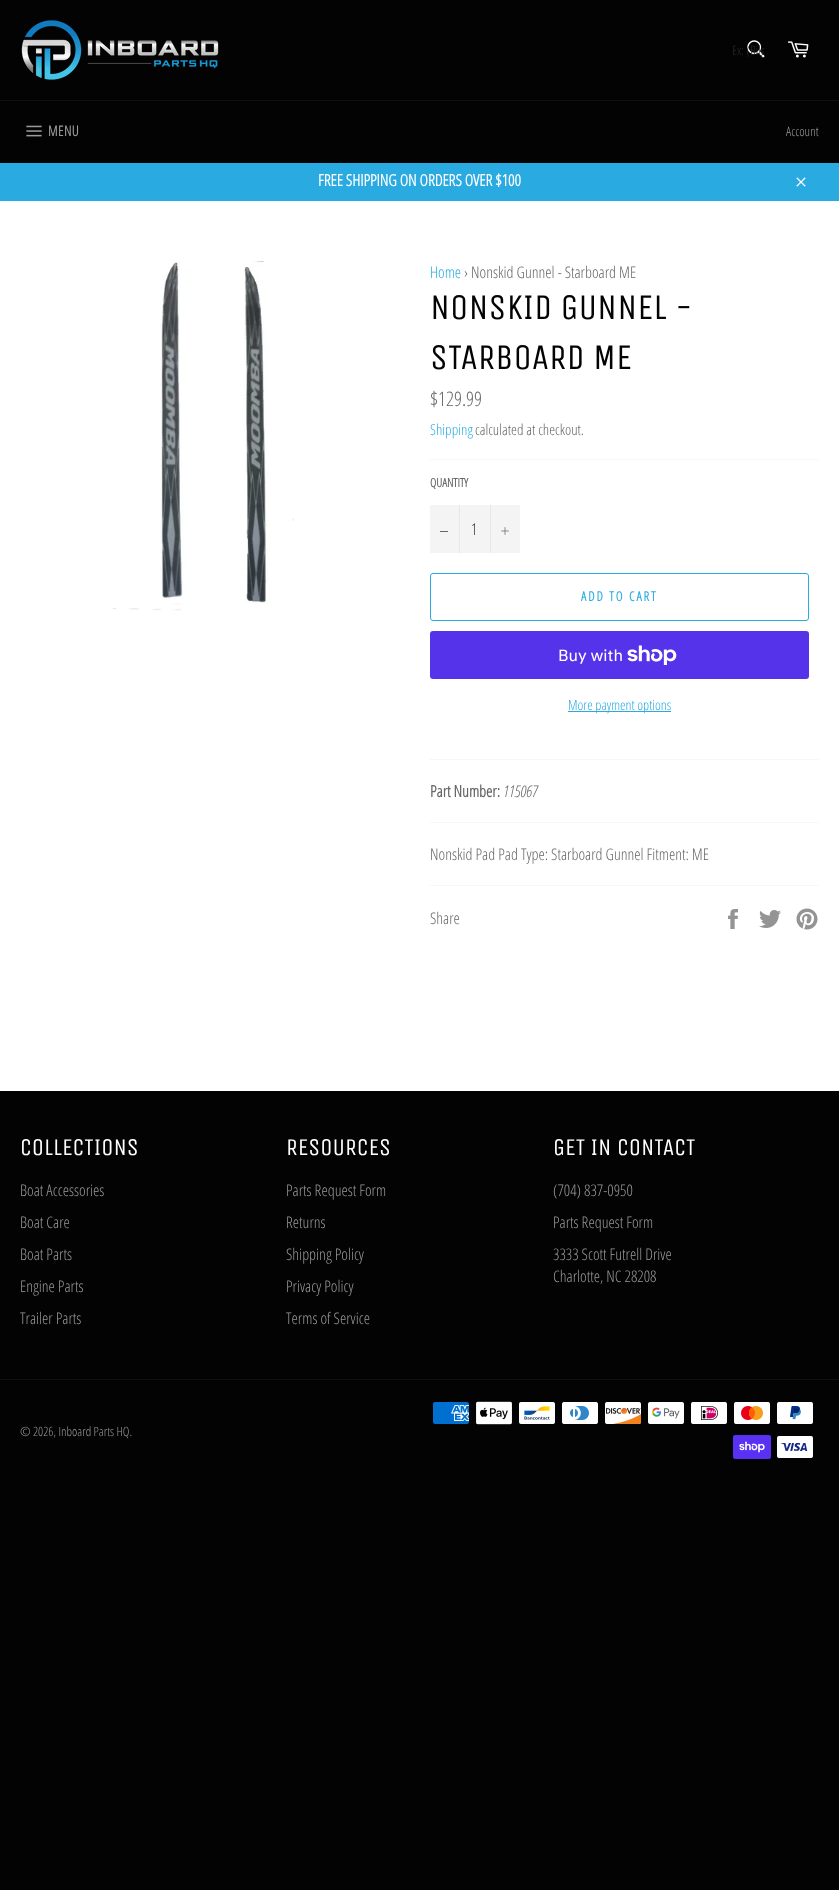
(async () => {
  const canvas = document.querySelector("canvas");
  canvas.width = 839;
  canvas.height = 1890;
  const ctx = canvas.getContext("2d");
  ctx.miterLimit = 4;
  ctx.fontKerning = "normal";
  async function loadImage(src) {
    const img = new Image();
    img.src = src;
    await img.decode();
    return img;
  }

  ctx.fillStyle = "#030303";
  ctx.fillRect(0, 0, 839, 1890);
  ctx.drawImage(await loadImage("img/1.png"), 21, 20, 198, 60);
  ctx.drawImage(await loadImage("img/2.png"), 747, 40, 18, 18);
  ctx.drawImage(await loadImage("img/3.png"), 787, 41, 22, 17);
  ctx.fillStyle = "#101010";
  ctx.fillRect(0, 100, 839, 1);
  ctx.drawImage(await loadImage("img/4.png"), 26, 125, 16, 12);
  ctx.fillStyle = "#29abe2";
  ctx.fillRect(0, 163, 839, 38);
  ctx.drawImage(await loadImage("img/5.png"), 796, 177, 10, 10);
  ctx.fillStyle = "#ffffff";
  ctx.fillRect(0, 201, 839, 890);
  ctx.drawImage(await loadImage("img/6.png"), 113, 261, 181, 350);
  for (const [x, y, w, h, color] of [
    [430, 459, 389, 1, "#f7f7f7"],
    [430, 505, 90, 48, "#f4f4f4"],
    [459, 505, 1, 48, "#e7e7e7"],
    [440, 531, 8, 1, "#666666"],
    [490, 505, 1, 48, "#e7e7e7"],
  ]) {
    ctx.fillStyle = color;
    ctx.fillRect(x, y, w, h);
  }
  ctx.drawImage(await loadImage("img/7.png"), 501, 527, 8, 8);
  ctx.beginPath();
  ctx.roundRect(430.5, 573.5, 378, 47, 2.5);
  ctx.strokeStyle = "#29abe2";
  ctx.stroke();
  ctx.fillStyle = "#5433eb";
  ctx.beginPath();
  ctx.roundRect(430, 631, 379, 48, 3);
  ctx.fill();
  ctx.drawImage(await loadImage("img/8.png"), 627, 645, 50, 20);
  for (const [x, y, w, h, color] of [
    [568, 711, 103, 1, "#29abe2"],
    [430, 759, 389, 1, "#f7f7f7"],
    [430, 822, 389, 1, "#f7f7f7"],
    [430, 885, 389, 1, "#f7f7f7"],
  ]) {
    ctx.fillStyle = color;
    ctx.fillRect(x, y, w, h);
  }
  ctx.drawImage(await loadImage("img/9.png"), 728, 909, 10, 20);
  ctx.drawImage(await loadImage("img/10.png"), 759, 910, 22, 18);
  ctx.drawImage(await loadImage("img/11.png"), 796, 908, 22, 22);
  ctx.fillStyle = "#101010";
  ctx.fillRect(0, 1379, 839, 1);
  ctx.drawImage(await loadImage("img/12.png"), 433, 1402, 36, 22);
  ctx.drawImage(await loadImage("img/13.png"), 476, 1401, 36, 24);
  ctx.drawImage(await loadImage("img/14.png"), 519, 1402, 36, 22);
  ctx.drawImage(await loadImage("img/15.png"), 562, 1402, 36, 22);
  ctx.drawImage(await loadImage("img/16.png"), 605, 1402, 37, 22);
  ctx.drawImage(await loadImage("img/17.png"), 648, 1402, 36, 22);
  ctx.drawImage(await loadImage("img/18.png"), 691, 1402, 36, 22);
  ctx.drawImage(await loadImage("img/19.png"), 734, 1402, 36, 22);
  ctx.drawImage(await loadImage("img/20.png"), 777, 1402, 36, 22);
  ctx.drawImage(await loadImage("img/21.png"), 733, 1435, 38, 24);
  ctx.drawImage(await loadImage("img/22.png"), 777, 1436, 36, 22);
  ctx.save();
  ctx.beginPath();
  ctx.rect(732, 41, 32, 18);
  ctx.clip();
  ctx.font = "300 13px Open Sans Condensed";
  ctx.fillStyle = "#2b2b2b";
  ctx.fillText("Ex: (Bilg", 732, 55);
  ctx.restore();
  ctx.letterSpacing = "0.5px";
  ctx.font = "bold 14px Open Sans Condensed";
  ctx.fillStyle = "#9a9a9a";
  ctx.fillText("MENU", 48, 136);
  ctx.letterSpacing = "0px";
  ctx.font = "300 13px Open Sans Condensed";
  ctx.fillText("Account", 786, 136);
  ctx.font = "bold 16px Open Sans Condensed";
  ctx.fillStyle = "#ffffff";
  ctx.fillText("FREE SHIPPING ON ORDERS OVER $100", 318, 186);
  ctx.font = "300 16px Open Sans Condensed";
  ctx.fillStyle = "#29abe2";
  ctx.fillText("Home", 430, 278);
  ctx.fillStyle = "#666666";
  ctx.fillText("› Nonskid Gunnel - Starboard ME", 464, 278);
  ctx.font = "36px Unica One";
  ctx.fillStyle = "#030303";
  ctx.fillText("NONSKID GUNNEL -", 430, 319);
  ctx.fillText("STARBOARD ME", 430, 369);
  ctx.font = "300 20px Open Sans Condensed";
  ctx.fillStyle = "#666666";
  ctx.fillText("$129.99", 430, 406);
  ctx.font = "300 15px Open Sans Condensed";
  ctx.fillStyle = "#29abe2";
  ctx.fillText("Shipping", 430, 435);
  ctx.fillStyle = "#666666";
  ctx.fillText("calculated at checkout.", 475, 435);
  ctx.font = "bold 12px Open Sans Condensed";
  ctx.fillText("QUANTITY", 430, 487);
  ctx.font = "300 16px Open Sans Condensed";
  ctx.fillStyle = "#333333";
  ctx.fillText("1", 471, 535);
  ctx.letterSpacing = "2px";
  ctx.font = "bold 13px Open Sans Condensed";
  ctx.fillStyle = "#29abe2";
  ctx.fillText("ADD TO CART", 581, 601);
  ctx.letterSpacing = "0px";
  ctx.font = "16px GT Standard";
  ctx.fillStyle = "#ffffff";
  ctx.fillText("Buy with", 558, 661);
  ctx.font = "300 14px Open Sans Condensed";
  ctx.fillStyle = "#29abe2";
  ctx.fillText("More payment options", 568, 710);
  ctx.font = "bold 16px Open Sans Condensed";
  ctx.fillStyle = "#666666";
  ctx.fillText("Part Number:", 430, 797);
  ctx.font = "italic 300 16px Open Sans Condensed";
  ctx.fillText("115067", 503, 797);
  ctx.font = "300 16px Open Sans Condensed";
  ctx.fillText("Nonskid Pad Pad Type: Starboard Gunnel Fitment: ME", 430, 860);
  ctx.fillText("Share", 430, 924);
  ctx.font = "24px Unica One";
  ctx.fillStyle = "#ffffff";
  ctx.fillText("COLLECTIONS", 20, 1155);
  ctx.font = "300 16px Open Sans Condensed";
  ctx.fillStyle = "#9a9a9a";
  for (const [text, x, y] of [
    ["Boat Accessories", 20, 1196],
    ["Boat Care", 20, 1228],
    ["Boat Parts", 20, 1260],
    ["Engine Parts", 20, 1292],
    ["Trailer Parts", 20, 1324],
  ]) {
    ctx.fillText(text, x, y);
  }
  ctx.font = "24px Unica One";
  ctx.fillStyle = "#ffffff";
  ctx.fillText("RESOURCES", 286, 1155);
  ctx.font = "300 16px Open Sans Condensed";
  ctx.fillStyle = "#9a9a9a";
  for (const [text, x, y] of [
    ["Parts Request Form", 286, 1196],
    ["Returns", 286, 1228],
    ["Shipping Policy", 286, 1260],
    ["Privacy Policy", 286, 1292],
    ["Terms of Service", 286, 1324],
  ]) {
    ctx.fillText(text, x, y);
  }
  ctx.font = "24px Unica One";
  ctx.fillStyle = "#ffffff";
  ctx.fillText("GET IN CONTACT", 553, 1155);
  ctx.font = "300 16px Open Sans Condensed";
  ctx.fillStyle = "#9a9a9a";
  for (const [text, x, y] of [
    ["(704) 837-0950", 553, 1196],
    ["Parts Request Form", 553, 1228],
    ["3333 Scott Futrell Drive", 553, 1260],
    ["Charlotte, NC 28208", 553, 1282],
  ]) {
    ctx.fillText(text, x, y);
  }
  ctx.font = "300 12.75px Open Sans Condensed";
  ctx.fillText("© 2026, Inboard Parts HQ.", 20, 1436);
})();
